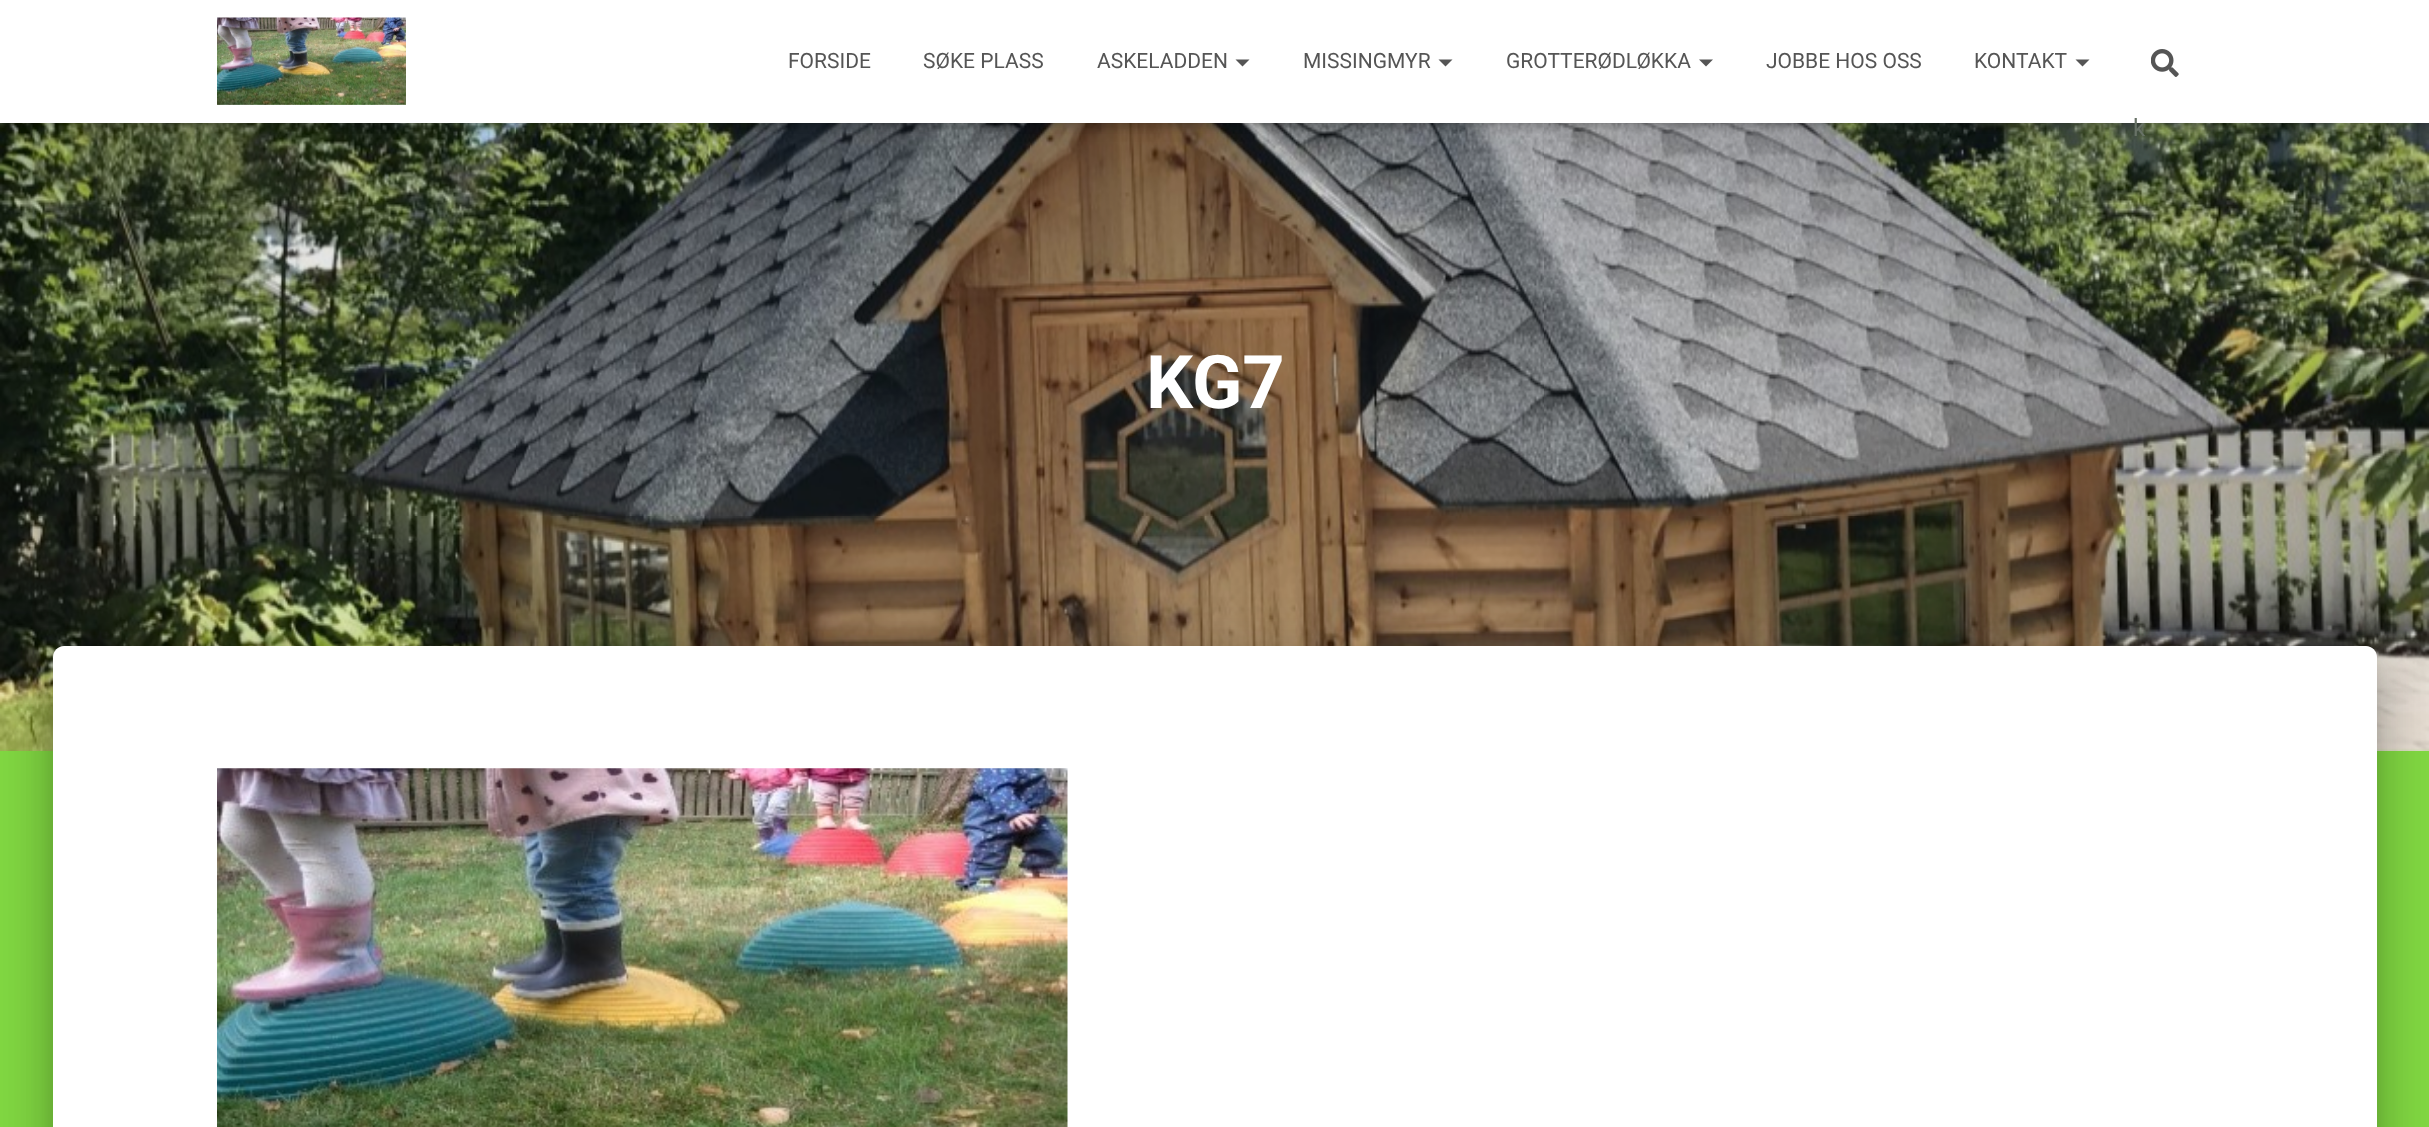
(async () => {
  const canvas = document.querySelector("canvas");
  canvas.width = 2429;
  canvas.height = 1127;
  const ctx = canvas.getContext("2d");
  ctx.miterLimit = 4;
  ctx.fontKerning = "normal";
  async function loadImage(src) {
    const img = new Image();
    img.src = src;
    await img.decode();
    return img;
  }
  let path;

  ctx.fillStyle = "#81d742";
  ctx.fillRect(0, 0, 2429, 1127);
  ctx.drawImage(await loadImage("img/3.png"), 0, 123, 2429, 628);
  ctx.fillStyle = "rgba(0, 0, 0, 0.1)";
  ctx.filter = "blur(4.5px)";
  ctx.beginPath();
  ctx.rect(4, 11, 2422, 115);
  ctx.fill();
  ctx.filter = "none";
  ctx.fillStyle = "rgba(0, 0, 0, 0.12)";
  ctx.filter = "blur(9px)";
  ctx.beginPath();
  ctx.rect(0, 2, 2429, 122);
  ctx.fill();
  ctx.filter = "none";
  ctx.fillStyle = "rgba(0, 0, 0, 0.42)";
  ctx.filter = "blur(9px)";
  ctx.beginPath();
  ctx.rect(11, 12, 2408, 102);
  ctx.fill();
  ctx.filter = "none";
  ctx.fillStyle = "#ffffff";
  ctx.fillRect(0, 0, 2429, 123);
  ctx.drawImage(await loadImage("img/1.png"), 217, 17, 189, 88);
  ctx.fillStyle = "#555555";
  path = new Path2D("M1235.5 59.5H1249.5L1242.5 66.5Z");
  ctx.fill(path);
  path = new Path2D("M1438.5 59.5H1452.5L1445.5 66.5Z");
  ctx.fill(path);
  path = new Path2D("M1699 59.5H1713L1706 66.5Z");
  ctx.fill(path);
  path = new Path2D("M2075.5 59.5H2089.5L2082.5 66.5Z");
  ctx.fill(path);
  ctx.drawImage(await loadImage("img/2.png"), 2151, 49, 28, 28);
  ctx.fillStyle = "rgba(0, 0, 0, 0.2)";
  ctx.filter = "blur(9px)";
  ctx.beginPath();
  ctx.roundRect(61, 669, 2307, 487, 2);
  ctx.fill();
  ctx.filter = "none";
  ctx.fillStyle = "rgba(0, 0, 0, 0.12)";
  ctx.filter = "blur(26px)";
  ctx.beginPath();
  ctx.roundRect(44, 648, 2341, 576, 19);
  ctx.fill();
  ctx.filter = "none";
  ctx.fillStyle = "rgba(0, 0, 0, 0.14)";
  ctx.filter = "blur(21px)";
  ctx.beginPath();
  ctx.roundRect(49, 670, 2331, 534, 14);
  ctx.fill();
  ctx.filter = "none";
  ctx.fillStyle = "#ffffff";
  path = new Path2D("M64 646H2366C2372 646 2377 651 2377 657V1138H53V657C53 651 58 646 64 646Z");
  ctx.fill(path);
  ctx.drawImage(await loadImage("img/4.png"), 217, 768, 851, 359);
  ctx.font = "21px Roboto";
  ctx.fillStyle = "#555555";
  for (const [text, x, y] of [
    ["FORSIDE", 788, 68],
    ["SØKE PLASS", 923, 68],
    ["ASKELADDEN", 1097, 68],
    ["MISSINGMYR", 1303, 68],
    ["GROTTERØDLØKKA", 1506, 68],
    ["JOBBE HOS OSS", 1766, 68],
    ["KONTAKT", 1974, 68],
  ]) {
    ctx.fillText(text, x, y);
  }
  ctx.font = "24px Roboto";
  ctx.fillStyle = "#687266";
  ctx.fillText("k", 2133, 136);
  ctx.font = "bold 74px Roboto";
  ctx.fillStyle = "#ffffff";
  ctx.fillText("KG7", 1146, 408);
})();
